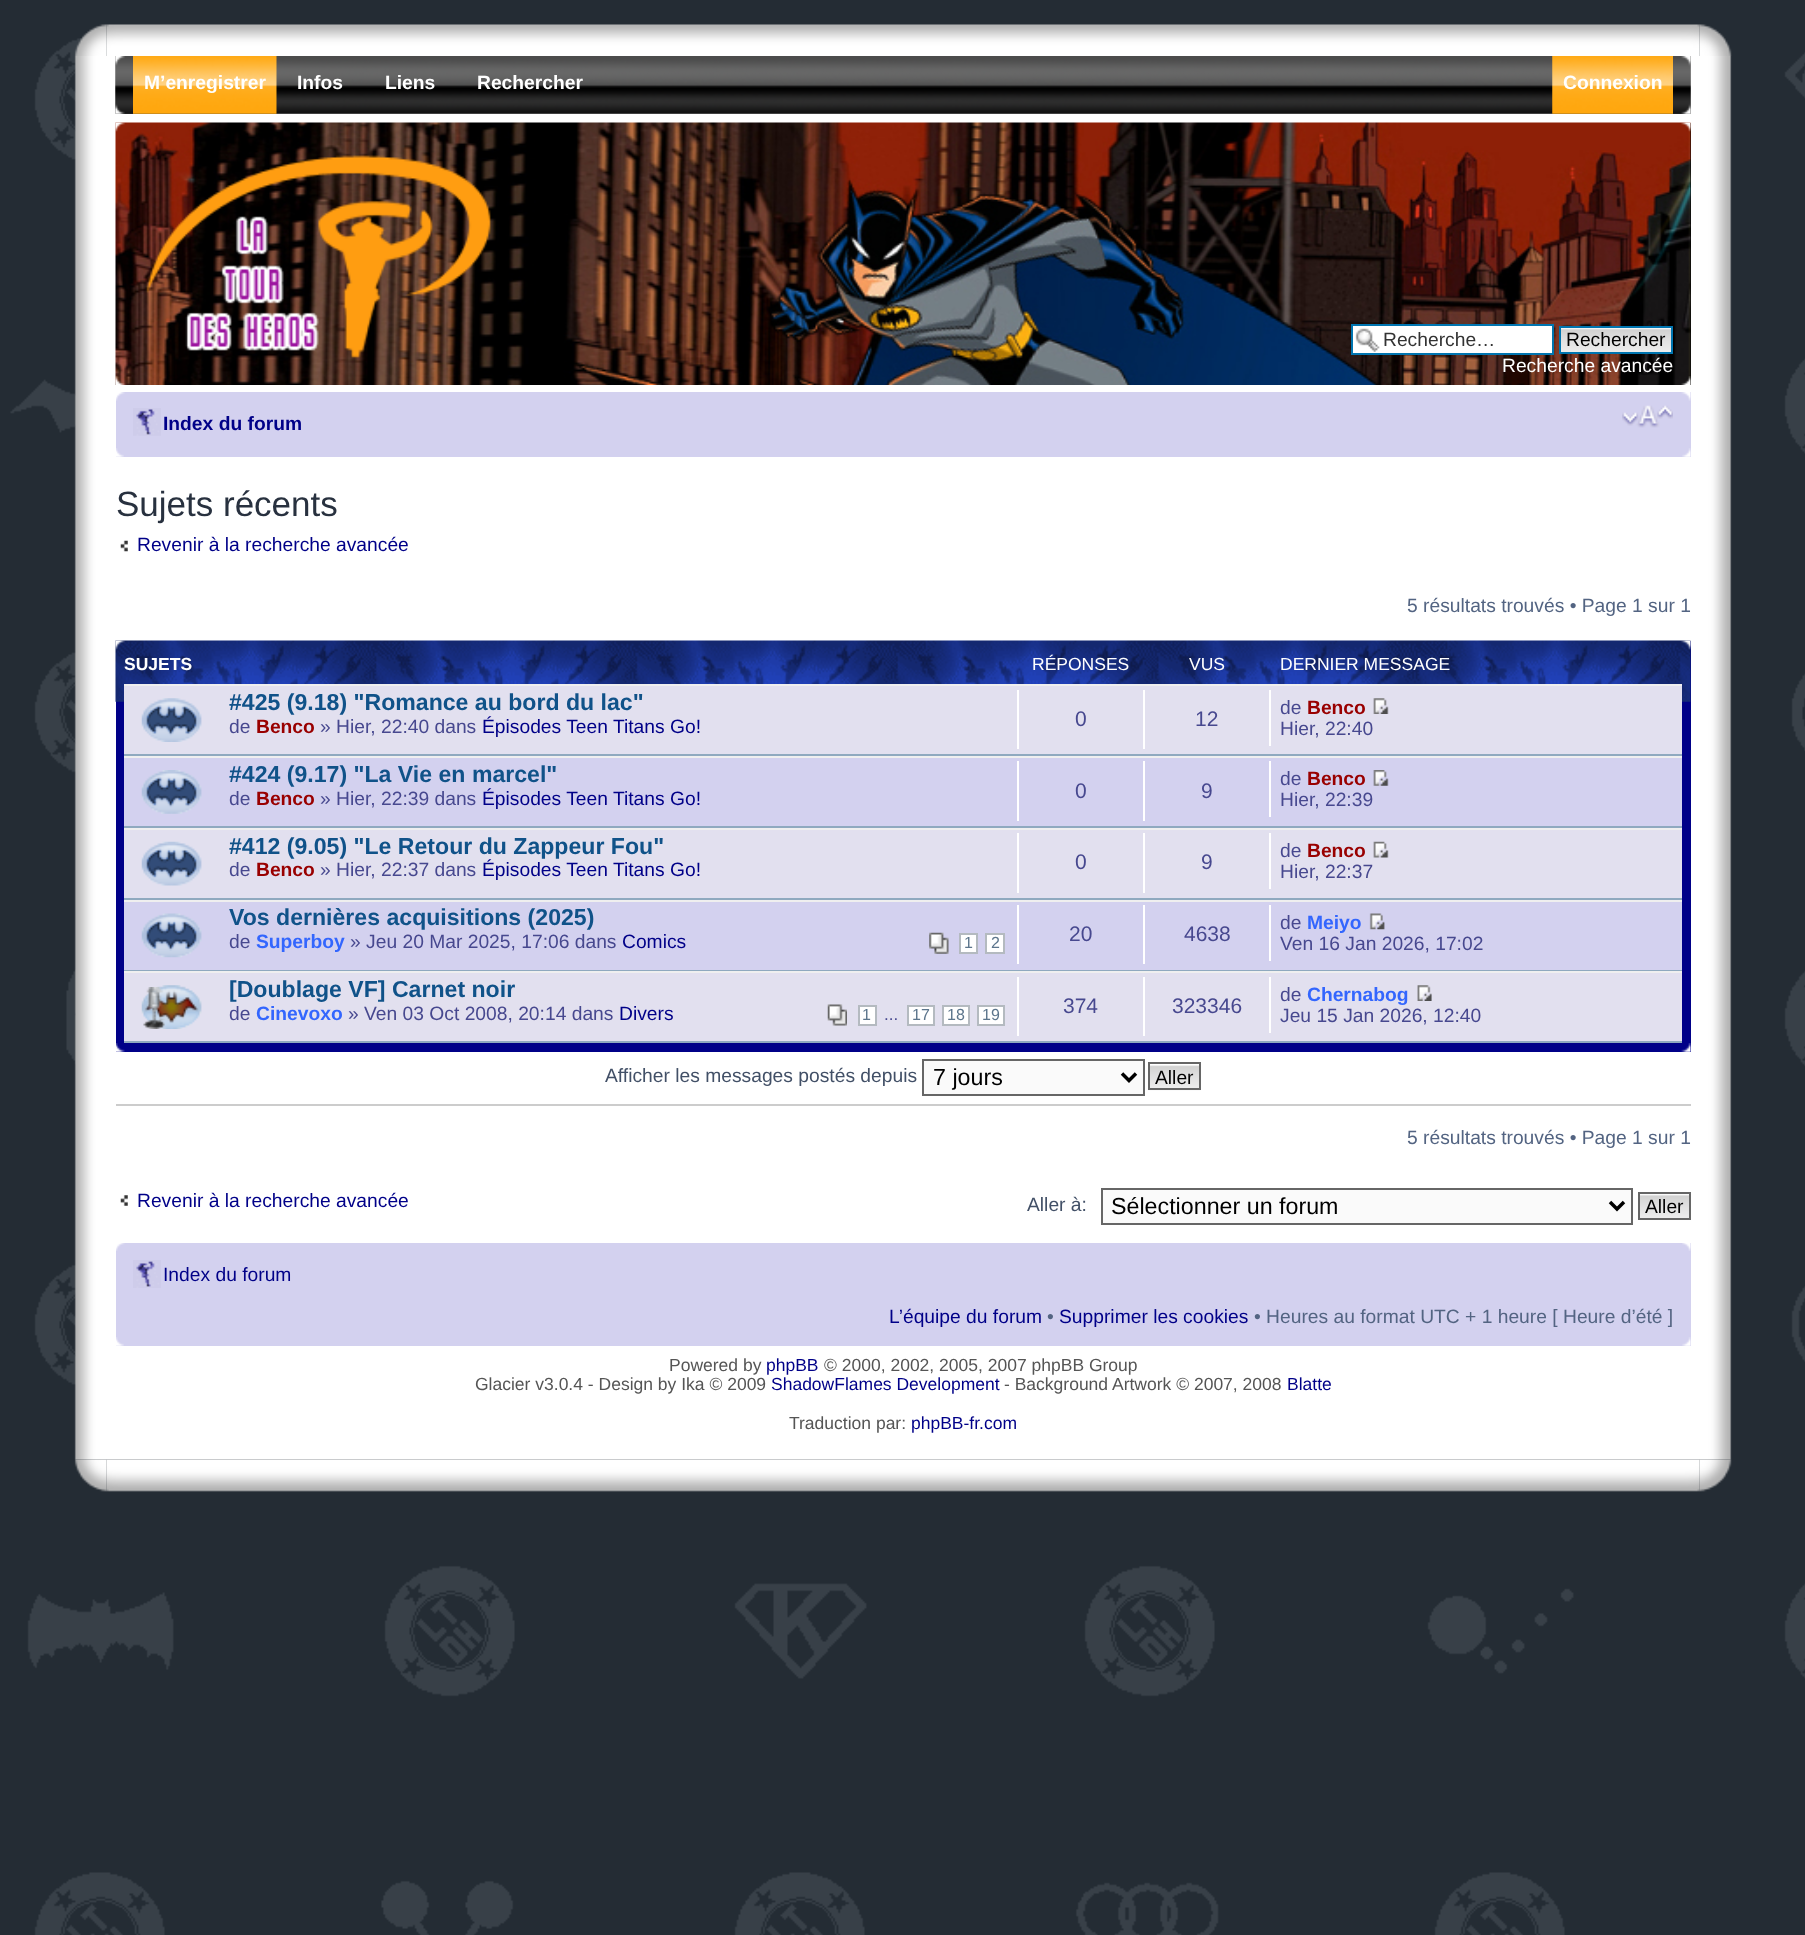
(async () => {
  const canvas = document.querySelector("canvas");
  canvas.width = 1805;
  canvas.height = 1935;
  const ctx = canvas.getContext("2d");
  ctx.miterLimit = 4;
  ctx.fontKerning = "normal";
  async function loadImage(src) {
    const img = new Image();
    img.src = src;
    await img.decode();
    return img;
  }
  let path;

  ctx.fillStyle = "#ffffff";
  ctx.fillRect(0, 0, 1805, 1935);
  ctx.drawImage(await loadImage("img/1.png"), 0, 1516, 1805, 419);
  ctx.drawImage(await loadImage("img/2.png"), 0, 0, 1805, 1516);
  ctx.drawImage(await loadImage("img/3.png"), 74, 24, 33, 32);
  ctx.drawImage(await loadImage("img/4.png"), 106, 24, 1594, 32);
  ctx.drawImage(await loadImage("img/5.png"), 1699, 24, 33, 32);
  ctx.drawImage(await loadImage("img/6.png"), 74, 56, 1658, 1404);
  ctx.fillStyle = "#cccccc";
  ctx.fillRect(116, 56, 1575, 58);
  ctx.drawImage(await loadImage("img/7.png"), 115, 56, 1576, 58);
  ctx.drawImage(await loadImage("img/8.png"), 115, 56, 18, 58);
  ctx.drawImage(await loadImage("img/9.png"), 133, 56, 144, 58);
  ctx.drawImage(await loadImage("img/10.png"), 1552, 56, 121, 58);
  ctx.drawImage(await loadImage("img/11.png"), 1673, 56, 18, 58);
  ctx.fillStyle = "#000000";
  ctx.fillRect(1690, 123, 1, 262);
  ctx.drawImage(await loadImage("img/12.png"), 115, 122, 1576, 263);
  ctx.drawImage(await loadImage("img/13.png"), 115, 122, 10, 10);
  ctx.drawImage(await loadImage("img/14.png"), 1681, 122, 10, 10);
  ctx.drawImage(await loadImage("img/15.png"), 146, 155, 345, 203);
  ctx.fillStyle = "#ffffff";
  ctx.fillRect(1353, 326, 199, 27);
  ctx.drawImage(await loadImage("img/16.png"), 1355, 328, 25, 24);
  ctx.strokeStyle = "#0075b0";
  ctx.lineWidth = 2;
  ctx.strokeRect(1352, 325, 201, 29);
  ctx.drawImage(await loadImage("img/17.png"), 1561, 328, 110, 24);
  ctx.strokeRect(1560, 327, 112, 26);
  ctx.drawImage(await loadImage("img/18.png"), 115, 376, 10, 9);
  ctx.drawImage(await loadImage("img/19.png"), 1681, 376, 10, 9);
  ctx.fillStyle = "#d3d1ef";
  ctx.fillRect(116, 392, 1575, 65);
  ctx.drawImage(await loadImage("img/20.png"), 116, 392, 9, 9);
  ctx.drawImage(await loadImage("img/21.png"), 1681, 392, 10, 9);
  ctx.drawImage(await loadImage("img/22.png"), 133, 408, 28, 28);
  ctx.drawImage(await loadImage("img/23.png"), 1622, 405, 51, 23);
  ctx.drawImage(await loadImage("img/24.png"), 116, 448, 8, 9);
  ctx.drawImage(await loadImage("img/25.png"), 1682, 448, 9, 9);
  ctx.drawImage(await loadImage("img/26.png"), 120, 540, 8, 12);
  ctx.fillStyle = "#000088";
  ctx.fillRect(116, 641, 1575, 411);
  ctx.drawImage(await loadImage("img/27.png"), 115, 640, 1576, 62);
  ctx.drawImage(await loadImage("img/28.png"), 115, 640, 10, 10);
  ctx.drawImage(await loadImage("img/29.png"), 1681, 640, 10, 10);
  for (const [x, y, w, h, color] of [
    [124, 686, 1558, 68, "#e2e0ef"],
    [124, 684, 1558, 2, "#efefef"],
    [124, 754, 1558, 2, "#8fa9bf"],
  ]) {
    ctx.fillStyle = color;
    ctx.fillRect(x, y, w, h);
  }
  ctx.drawImage(await loadImage("img/30.png"), 141, 698, 61, 44);
  for (const [x, y, w, h, color] of [
    [1017, 690, 2, 59, "#ffffff"],
    [1143, 690, 2, 59, "#ffffff"],
    [1269, 690, 2, 56, "#ffffff"],
  ]) {
    ctx.fillStyle = color;
    ctx.fillRect(x, y, w, h);
  }
  ctx.drawImage(await loadImage("img/31.png"), 1373, 698, 16, 16);
  for (const [x, y, w, h, color] of [
    [124, 758, 1558, 68, "#d3d1ef"],
    [124, 756, 1558, 2, "#efefef"],
    [124, 826, 1558, 2, "#8fa9bf"],
  ]) {
    ctx.fillStyle = color;
    ctx.fillRect(x, y, w, h);
  }
  ctx.drawImage(await loadImage("img/32.png"), 141, 770, 61, 44);
  for (const [x, y, w, h, color] of [
    [1017, 761, 2, 60, "#ffffff"],
    [1143, 761, 2, 60, "#ffffff"],
    [1269, 761, 2, 56, "#ffffff"],
  ]) {
    ctx.fillStyle = color;
    ctx.fillRect(x, y, w, h);
  }
  ctx.drawImage(await loadImage("img/33.png"), 1373, 770, 16, 16);
  for (const [x, y, w, h, color] of [
    [124, 830, 1558, 68, "#e2e0ef"],
    [124, 828, 1558, 2, "#efefef"],
    [124, 898, 1558, 2, "#8fa9bf"],
  ]) {
    ctx.fillStyle = color;
    ctx.fillRect(x, y, w, h);
  }
  ctx.drawImage(await loadImage("img/34.png"), 141, 841, 61, 45);
  for (const [x, y, w, h, color] of [
    [1017, 833, 2, 60, "#ffffff"],
    [1143, 833, 2, 60, "#ffffff"],
    [1269, 833, 2, 56, "#ffffff"],
  ]) {
    ctx.fillStyle = color;
    ctx.fillRect(x, y, w, h);
  }
  ctx.drawImage(await loadImage("img/35.png"), 1373, 841, 16, 17);
  for (const [x, y, w, h, color] of [
    [124, 902, 1558, 68, "#d3d1ef"],
    [124, 900, 1558, 2, "#efefef"],
    [124, 970, 1558, 1, "#8fa9bf"],
  ]) {
    ctx.fillStyle = color;
    ctx.fillRect(x, y, w, h);
  }
  ctx.drawImage(await loadImage("img/36.png"), 141, 913, 61, 45);
  ctx.drawImage(await loadImage("img/37.png"), 929, 932, 20, 22);
  ctx.fillStyle = "#ffffff";
  ctx.beginPath();
  ctx.rect(960, 934, 17, 19);
  ctx.fill();
  ctx.strokeStyle = "#b4bac0";
  ctx.stroke();
  ctx.beginPath();
  ctx.rect(986, 934, 18, 19);
  ctx.fill();
  ctx.stroke();
  for (const [x, y, w, h, color] of [
    [1017, 905, 2, 59, "#ffffff"],
    [1143, 905, 2, 59, "#ffffff"],
    [1269, 905, 2, 56, "#ffffff"],
  ]) {
    ctx.fillStyle = color;
    ctx.fillRect(x, y, w, h);
  }
  ctx.drawImage(await loadImage("img/38.png"), 1369, 913, 16, 17);
  for (const [x, y, w, h, color] of [
    [124, 973, 1558, 68, "#e2e0ef"],
    [124, 971, 1558, 2, "#efefef"],
    [124, 1041, 1558, 2, "#8fa9bf"],
  ]) {
    ctx.fillStyle = color;
    ctx.fillRect(x, y, w, h);
  }
  ctx.drawImage(await loadImage("img/39.png"), 141, 985, 61, 44);
  ctx.drawImage(await loadImage("img/40.png"), 143, 987, 27, 42);
  ctx.drawImage(await loadImage("img/41.png"), 827, 1004, 20, 22);
  ctx.fillStyle = "#ffffff";
  ctx.beginPath();
  ctx.rect(859, 1006, 17, 19);
  ctx.fill();
  ctx.stroke();
  ctx.beginPath();
  ctx.rect(908, 1006, 26, 19);
  ctx.fill();
  ctx.stroke();
  ctx.beginPath();
  ctx.rect(943, 1006, 26, 19);
  ctx.fill();
  ctx.stroke();
  ctx.beginPath();
  ctx.rect(978, 1006, 26, 19);
  ctx.fill();
  ctx.stroke();
  for (const [x, y, w, h, color] of [
    [1017, 977, 2, 59, "#ffffff"],
    [1143, 977, 2, 59, "#ffffff"],
    [1269, 977, 2, 56, "#ffffff"],
  ]) {
    ctx.fillStyle = color;
    ctx.fillRect(x, y, w, h);
  }
  ctx.drawImage(await loadImage("img/42.png"), 1417, 985, 15, 16);
  ctx.drawImage(await loadImage("img/43.png"), 116, 1043, 9, 9);
  ctx.drawImage(await loadImage("img/44.png"), 1681, 1043, 10, 9);
  ctx.fillStyle = "#fafafa";
  ctx.beginPath();
  ctx.rect(923, 1060, 221, 35);
  ctx.fill();
  ctx.strokeStyle = "#666666";
  ctx.stroke();
  path = new Path2D("M1122 1073.5L1129 1080.5L1136 1073.5");
  ctx.strokeStyle = "#000000";
  ctx.lineWidth = 3.5;
  ctx.stroke(path);
  ctx.drawImage(await loadImage("img/45.png"), 1148, 1064, 53, 27);
  ctx.strokeStyle = "#666666";
  ctx.lineWidth = 2;
  ctx.strokeRect(1149, 1063, 51, 26);
  ctx.fillStyle = "#cccccc";
  ctx.fillRect(116, 1104, 1575, 2);
  ctx.drawImage(await loadImage("img/46.png"), 120, 1195, 8, 11);
  ctx.fillStyle = "#fafafa";
  ctx.beginPath();
  ctx.rect(1102, 1189, 530, 35);
  ctx.fill();
  ctx.stroke();
  path = new Path2D("M1610 1202L1617 1209L1624 1202");
  ctx.strokeStyle = "#000000";
  ctx.lineWidth = 3.5;
  ctx.stroke(path);
  ctx.fillRect(1640, 1194, 49, 1);
  ctx.drawImage(await loadImage("img/47.png"), 1640, 1195, 49, 23);
  ctx.strokeStyle = "#666666";
  ctx.lineWidth = 2;
  ctx.strokeRect(1639, 1193, 51, 26);
  ctx.fillStyle = "#d3d1ef";
  ctx.fillRect(116, 1243, 1575, 103);
  ctx.drawImage(await loadImage("img/48.png"), 116, 1243, 9, 8);
  ctx.drawImage(await loadImage("img/49.png"), 1682, 1243, 9, 8);
  ctx.drawImage(await loadImage("img/50.png"), 133, 1260, 28, 28);
  ctx.drawImage(await loadImage("img/24.png"), 116, 1337, 8, 9);
  ctx.drawImage(await loadImage("img/25.png"), 1682, 1337, 9, 9);
  ctx.drawImage(await loadImage("img/51.png"), 74, 1459, 33, 33);
  ctx.drawImage(await loadImage("img/52.png"), 106, 1459, 1594, 33);
  ctx.drawImage(await loadImage("img/53.png"), 1699, 1459, 33, 33);
  ctx.font = "bold 19.25px Liberation Sans";
  ctx.fillStyle = "#ffffff";
  for (const [text, x, y] of [
    ["M’enregistrer", 144, 89],
    ["Infos", 297, 89],
    ["Liens", 385, 89],
    ["Rechercher", 477, 89],
    ["Connexion", 1563, 89],
  ]) {
    ctx.fillText(text, x, y);
  }
  ctx.font = "19.25px Liberation Sans";
  ctx.fillStyle = "#333333";
  ctx.fillText("Recherche…", 1383, 346);
  ctx.fillStyle = "#000000";
  ctx.fillText("Rechercher", 1566, 346);
  ctx.fillStyle = "#ffffff";
  ctx.fillText("Recherche avancée", 1502, 372);
  ctx.font = "bold 19.25px Liberation Sans";
  ctx.fillStyle = "#000088";
  ctx.fillText("Index du forum", 163, 430);
  ctx.font = "35px Liberation Sans";
  ctx.fillStyle = "#28313f";
  ctx.fillText("Sujets récents", 116, 516);
  ctx.font = "19.25px Liberation Sans";
  ctx.fillStyle = "#000088";
  ctx.fillText("Revenir à la recherche avancée", 137, 551);
  ctx.fillStyle = "#536482";
  ctx.fillText("5 résultats trouvés • Page 1 sur 1", 1407, 612);
  ctx.font = "bold 17.5px Liberation Sans";
  ctx.fillStyle = "#ffffff";
  ctx.fillText("SUJETS", 124, 670);
  ctx.font = "17.5px Liberation Sans";
  for (const [text, x, y] of [
    ["RÉPONSES", 1032, 670],
    ["VUS", 1189, 670],
    ["DERNIER MESSAGE", 1280, 670],
  ]) {
    ctx.fillText(text, x, y);
  }
  ctx.font = "bold 23.1px Liberation Sans";
  ctx.fillStyle = "#105289";
  ctx.fillText("#425 (9.18) \"Romance au bord du lac\"", 229, 710);
  ctx.font = "19.25px Liberation Sans";
  ctx.fillStyle = "#47488f";
  ctx.fillText("de", 229, 733);
  ctx.font = "bold 19.25px Liberation Sans";
  ctx.fillStyle = "#990000";
  ctx.fillText("Benco", 256, 733);
  ctx.font = "19.25px Liberation Sans";
  ctx.fillStyle = "#47488f";
  ctx.fillText("» Hier, 22:40 dans", 320, 733);
  ctx.fillStyle = "#000088";
  ctx.fillText("Épisodes Teen Titans Go!", 482, 733);
  ctx.font = "21px Liberation Sans";
  ctx.fillStyle = "#47488f";
  ctx.fillText("0", 1075, 726);
  ctx.fillText("12", 1195, 726);
  ctx.font = "19.25px Liberation Sans";
  ctx.fillText("de", 1280, 714);
  ctx.font = "bold 19.25px Liberation Sans";
  ctx.fillStyle = "#990000";
  ctx.fillText("Benco", 1307, 714);
  ctx.font = "19.25px Liberation Sans";
  ctx.fillStyle = "#47488f";
  ctx.fillText("Hier, 22:40", 1280, 735);
  ctx.font = "bold 23.1px Liberation Sans";
  ctx.fillStyle = "#105289";
  ctx.fillText("#424 (9.17) \"La Vie en marcel\"", 229, 782);
  ctx.font = "19.25px Liberation Sans";
  ctx.fillStyle = "#47488f";
  ctx.fillText("de", 229, 805);
  ctx.font = "bold 19.25px Liberation Sans";
  ctx.fillStyle = "#990000";
  ctx.fillText("Benco", 256, 805);
  ctx.font = "19.25px Liberation Sans";
  ctx.fillStyle = "#47488f";
  ctx.fillText("» Hier, 22:39 dans", 320, 805);
  ctx.fillStyle = "#000088";
  ctx.fillText("Épisodes Teen Titans Go!", 482, 805);
  ctx.font = "21px Liberation Sans";
  ctx.fillStyle = "#47488f";
  ctx.fillText("0", 1075, 798);
  ctx.fillText("9", 1201, 798);
  ctx.font = "19.25px Liberation Sans";
  ctx.fillText("de", 1280, 785);
  ctx.font = "bold 19.25px Liberation Sans";
  ctx.fillStyle = "#990000";
  ctx.fillText("Benco", 1307, 785);
  ctx.font = "19.25px Liberation Sans";
  ctx.fillStyle = "#47488f";
  ctx.fillText("Hier, 22:39", 1280, 806);
  ctx.font = "bold 23.1px Liberation Sans";
  ctx.fillStyle = "#105289";
  ctx.fillText("#412 (9.05) \"Le Retour du Zappeur Fou\"", 229, 854);
  ctx.font = "19.25px Liberation Sans";
  ctx.fillStyle = "#47488f";
  ctx.fillText("de", 229, 876);
  ctx.font = "bold 19.25px Liberation Sans";
  ctx.fillStyle = "#990000";
  ctx.fillText("Benco", 256, 876);
  ctx.font = "19.25px Liberation Sans";
  ctx.fillStyle = "#47488f";
  ctx.fillText("» Hier, 22:37 dans", 320, 876);
  ctx.fillStyle = "#000088";
  ctx.fillText("Épisodes Teen Titans Go!", 482, 876);
  ctx.font = "21px Liberation Sans";
  ctx.fillStyle = "#47488f";
  ctx.fillText("0", 1075, 869);
  ctx.fillText("9", 1201, 869);
  ctx.font = "19.25px Liberation Sans";
  ctx.fillText("de", 1280, 857);
  ctx.font = "bold 19.25px Liberation Sans";
  ctx.fillStyle = "#990000";
  ctx.fillText("Benco", 1307, 857);
  ctx.font = "19.25px Liberation Sans";
  ctx.fillStyle = "#47488f";
  ctx.fillText("Hier, 22:37", 1280, 878);
  ctx.font = "bold 23.1px Liberation Sans";
  ctx.fillStyle = "#105289";
  ctx.fillText("Vos dernières acquisitions (2025)", 229, 925);
  ctx.font = "19.25px Liberation Sans";
  ctx.fillStyle = "#47488f";
  ctx.fillText("de", 229, 948);
  ctx.font = "bold 19.25px Liberation Sans";
  ctx.fillStyle = "#3366fe";
  ctx.fillText("Superboy", 256, 948);
  ctx.font = "19.25px Liberation Sans";
  ctx.fillStyle = "#47488f";
  ctx.fillText("» Jeu 20 Mar 2025, 17:06 dans", 350, 948);
  ctx.fillStyle = "#000088";
  ctx.fillText("Comics", 622, 948);
  ctx.font = "16px Liberation Sans";
  ctx.fillStyle = "#5c758c";
  ctx.fillText("1", 964, 948);
  ctx.fillText("2", 991, 948);
  ctx.font = "21px Liberation Sans";
  ctx.fillStyle = "#47488f";
  ctx.fillText("20", 1069, 941);
  ctx.fillText("4638", 1184, 941);
  ctx.font = "19.25px Liberation Sans";
  ctx.fillText("de", 1280, 929);
  ctx.font = "bold 19.25px Liberation Sans";
  ctx.fillStyle = "#3366fe";
  ctx.fillText("Meiyo", 1307, 929);
  ctx.font = "19.25px Liberation Sans";
  ctx.fillStyle = "#47488f";
  ctx.fillText("Ven 16 Jan 2026, 17:02", 1280, 950);
  ctx.font = "bold 23.1px Liberation Sans";
  ctx.fillStyle = "#105289";
  ctx.fillText("[Doublage VF] Carnet noir", 229, 997);
  ctx.font = "19.25px Liberation Sans";
  ctx.fillStyle = "#47488f";
  ctx.fillText("de", 229, 1020);
  ctx.font = "bold 19.25px Liberation Sans";
  ctx.fillStyle = "#3366fe";
  ctx.fillText("Cinevoxo", 256, 1020);
  ctx.font = "19.25px Liberation Sans";
  ctx.fillStyle = "#47488f";
  ctx.fillText("» Ven 03 Oct 2008, 20:14 dans", 348, 1020);
  ctx.fillStyle = "#000088";
  ctx.fillText("Divers", 619, 1020);
  ctx.font = "16px Liberation Sans";
  ctx.fillStyle = "#5c758c";
  ctx.fillText("1", 862, 1020);
  ctx.font = "17px Liberation Sans";
  ctx.fillStyle = "#47488f";
  ctx.fillText("...", 884, 1020);
  ctx.font = "16px Liberation Sans";
  ctx.fillStyle = "#5c758c";
  for (const [text, x, y] of [
    ["17", 912, 1020],
    ["18", 947, 1020],
    ["19", 982, 1020],
  ]) {
    ctx.fillText(text, x, y);
  }
  ctx.font = "21px Liberation Sans";
  ctx.fillStyle = "#47488f";
  ctx.fillText("374", 1063, 1013);
  ctx.fillText("323346", 1172, 1013);
  ctx.font = "19.25px Liberation Sans";
  ctx.fillText("de", 1280, 1001);
  ctx.font = "bold 19.25px Liberation Sans";
  ctx.fillStyle = "#3366fe";
  ctx.fillText("Chernabog", 1307, 1001);
  ctx.font = "19.25px Liberation Sans";
  ctx.fillStyle = "#47488f";
  ctx.fillText("Jeu 15 Jan 2026, 12:40", 1280, 1022);
  ctx.fillStyle = "#425067";
  ctx.fillText("Afficher les messages postés depuis", 605, 1082);
  ctx.font = "23.25px Liberation Sans";
  ctx.fillStyle = "#000000";
  ctx.fillText("7 jours", 933, 1085);
  ctx.font = "19.25px Liberation Sans";
  ctx.fillText("Aller", 1155, 1084);
  ctx.fillStyle = "#536482";
  ctx.fillText("5 résultats trouvés • Page 1 sur 1", 1407, 1144);
  ctx.fillStyle = "#000088";
  ctx.fillText("Revenir à la recherche avancée", 137, 1207);
  ctx.fillStyle = "#425067";
  ctx.fillText("Aller à:", 1027, 1211);
  ctx.font = "23.25px Liberation Sans";
  ctx.fillStyle = "#000000";
  ctx.fillText("Sélectionner un forum", 1111, 1214);
  ctx.font = "19.25px Liberation Sans";
  ctx.fillText("Aller", 1645, 1213);
  ctx.fillStyle = "#000088";
  ctx.fillText("Index du forum", 163, 1281);
  ctx.fillText("L’équipe du forum", 889, 1323);
  ctx.fillStyle = "#536482";
  ctx.fillText("•", 1047, 1323);
  ctx.fillStyle = "#000088";
  ctx.fillText("Supprimer les cookies", 1059, 1323);
  ctx.fillStyle = "#536482";
  ctx.fillText("• Heures au format UTC + 1 heure [ Heure d’été ]", 1254, 1323);
  ctx.font = "17.5px Liberation Sans";
  ctx.fillStyle = "#555555";
  ctx.fillText("Powered by", 669, 1371);
  ctx.fillStyle = "#000088";
  ctx.fillText("phpBB", 766, 1371);
  ctx.fillStyle = "#555555";
  ctx.fillText("© 2000, 2002, 2005, 2007 phpBB Group", 824, 1371);
  ctx.fillText("Glacier v3.0.4 - Design by Ika © 2009", 475, 1390);
  ctx.fillStyle = "#000088";
  ctx.fillText("ShadowFlames Development", 771, 1390);
  ctx.fillStyle = "#555555";
  ctx.fillText("- Background Artwork © 2007, 2008", 1004, 1390);
  ctx.fillStyle = "#000088";
  ctx.fillText("Blatte", 1287, 1390);
  ctx.fillStyle = "#555555";
  ctx.fillText("Traduction par:", 789, 1429);
  ctx.fillStyle = "#000088";
  ctx.fillText("phpBB-fr.com", 911, 1429);
})();
